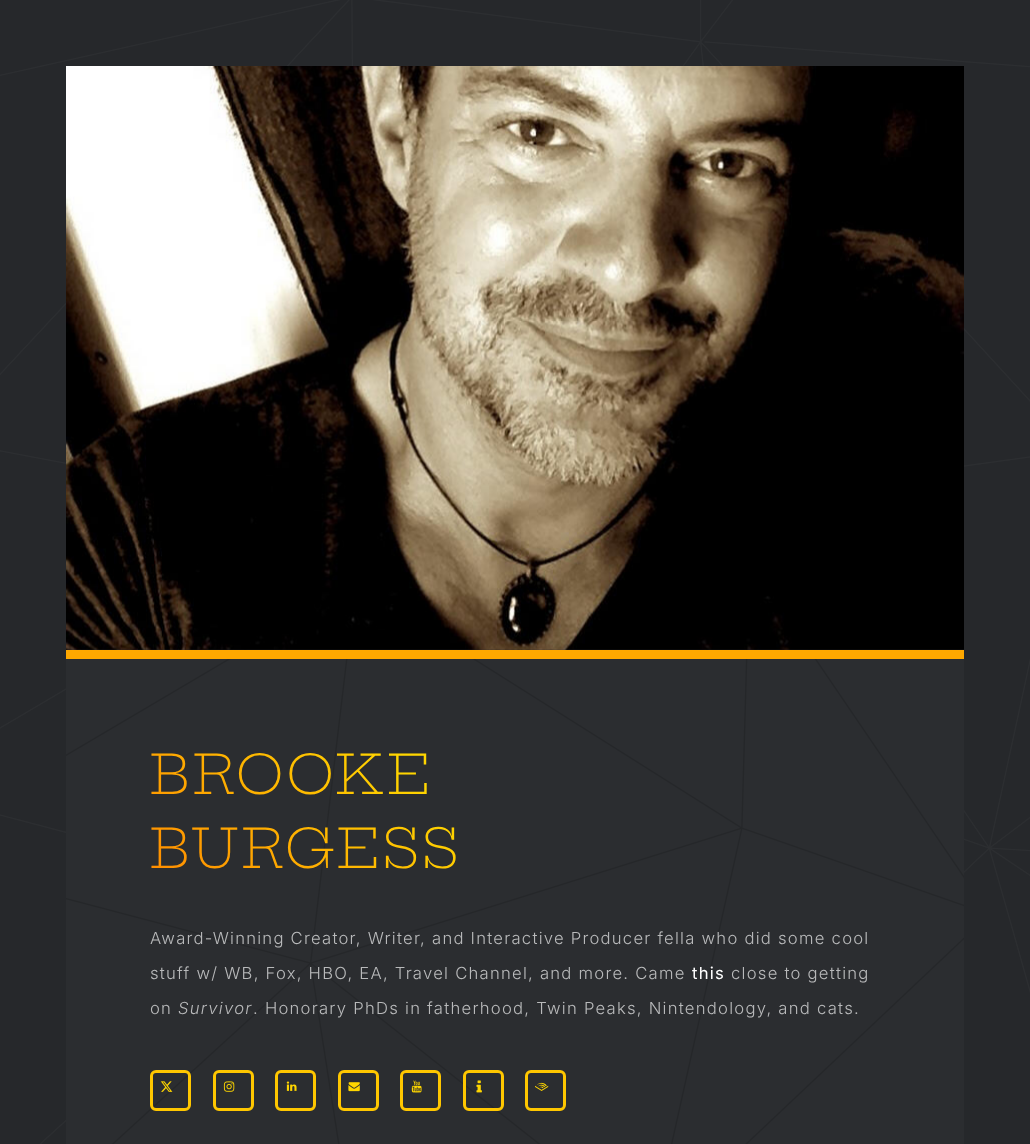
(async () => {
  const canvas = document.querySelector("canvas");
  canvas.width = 1030;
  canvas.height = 1144;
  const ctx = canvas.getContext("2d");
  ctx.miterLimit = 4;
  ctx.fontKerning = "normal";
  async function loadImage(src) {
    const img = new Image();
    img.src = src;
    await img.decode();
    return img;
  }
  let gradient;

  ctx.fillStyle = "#26282b";
  ctx.fillRect(0, 0, 1030, 1144);
  ctx.drawImage(await loadImage("img/1.png"), 0, 0, 1030, 1144);
  ctx.fillStyle = "#2b2d30";
  ctx.fillRect(66, 649, 898, 495);
  ctx.drawImage(await loadImage("img/2.png"), 66, 649, 898, 495);
  ctx.drawImage(await loadImage("img/3.png"), 66, 66, 898, 584);
  ctx.fillStyle = "#ffa800";
  ctx.fillRect(66, 650, 898, 9);
  ctx.beginPath();
  ctx.roundRect(151.5, 1071.5, 38, 38, 4.5);
  ctx.strokeStyle = "#ffc700";
  ctx.lineWidth = 3;
  ctx.stroke();
  ctx.drawImage(await loadImage("img/4.png"), 160, 1081, 13, 11);
  ctx.beginPath();
  ctx.roundRect(214.5, 1071.5, 38, 38, 4.5);
  ctx.stroke();
  ctx.drawImage(await loadImage("img/5.png"), 223, 1081, 12, 11);
  ctx.beginPath();
  ctx.roundRect(276.5, 1071.5, 38, 38, 4.5);
  ctx.stroke();
  ctx.drawImage(await loadImage("img/6.png"), 286, 1081, 11, 10);
  ctx.beginPath();
  ctx.roundRect(339.5, 1071.5, 38, 38, 4.5);
  ctx.stroke();
  ctx.drawImage(await loadImage("img/7.png"), 348, 1082, 12, 10);
  ctx.beginPath();
  ctx.roundRect(401.5, 1071.5, 38, 38, 4.5);
  ctx.stroke();
  ctx.drawImage(await loadImage("img/8.png"), 411, 1080, 11, 13);
  ctx.beginPath();
  ctx.roundRect(464.5, 1071.5, 38, 38, 4.5);
  ctx.stroke();
  ctx.drawImage(await loadImage("img/9.png"), 476, 1080, 6, 13);
  ctx.beginPath();
  ctx.roundRect(526.5, 1071.5, 38, 38, 4.5);
  ctx.stroke();
  ctx.drawImage(await loadImage("img/10.png"), 535, 1082, 14, 9);
  ctx.letterSpacing = "3.75px";
  ctx.font = "300 54px Hepta Slab";
  gradient = ctx.createLinearGradient(296, 1033, 738, 591);
  gradient.addColorStop(0, "#ff8a00");
  gradient.addColorStop(0.43, "#ffd600");
  ctx.fillStyle = gradient;
  ctx.fillText("BROOKE", 150, 794);
  ctx.fillText("BURGESS", 150, 868);
  ctx.letterSpacing = "1.25px";
  ctx.font = "300 16.65px Inter";
  ctx.fillStyle = "#b9babb";
  ctx.fillText("Award-Winning Creator, Writer, and Interactive Producer fella who did some cool", 150, 944);
  ctx.fillText("stuff w/ WB, Fox, HBO, EA, Travel Channel, and more. Came", 150, 979);
  ctx.font = "16.65px Inter";
  ctx.fillStyle = "#ffffff";
  ctx.fillText("this", 692, 979);
  ctx.font = "300 16.65px Inter";
  ctx.fillStyle = "#b9babb";
  ctx.fillText("close to getting", 731, 979);
  ctx.fillText("on", 150, 1014);
  ctx.font = "italic 300 16.65px Inter";
  ctx.fillText("Survivor", 178, 1014);
  ctx.font = "300 16.65px Inter";
  ctx.fillText(". Honorary PhDs in fatherhood, Twin Peaks, Nintendology, and cats.", 253, 1014);
})();
